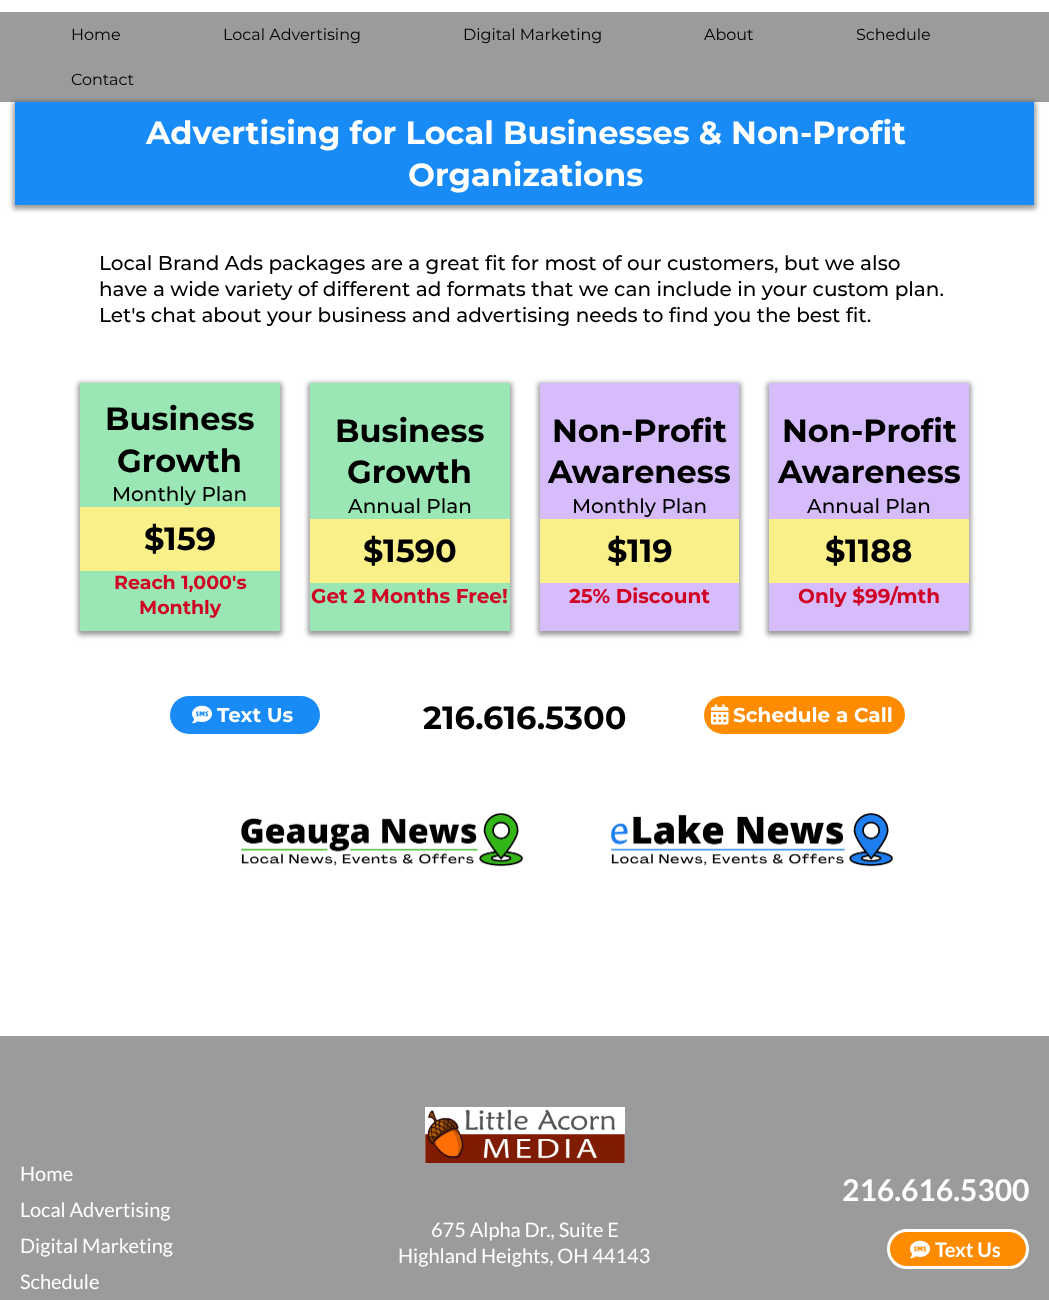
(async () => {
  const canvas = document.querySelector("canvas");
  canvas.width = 1049;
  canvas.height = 1300;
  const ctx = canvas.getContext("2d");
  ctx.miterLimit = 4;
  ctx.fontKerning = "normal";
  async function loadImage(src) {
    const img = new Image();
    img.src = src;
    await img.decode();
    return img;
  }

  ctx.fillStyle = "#ffffff";
  ctx.fillRect(0, 0, 1049, 1300);
  ctx.fillStyle = "#9b9b9b";
  ctx.fillRect(0, 12, 1049, 90);
  ctx.fillStyle = "rgba(0, 0, 0, 0.4)";
  ctx.filter = "blur(2.5px)";
  ctx.beginPath();
  ctx.rect(13, 102, 1023, 107);
  ctx.fill();
  ctx.filter = "none";
  ctx.fillStyle = "#188bf6";
  ctx.fillRect(15, 102, 1019, 103);
  ctx.fillStyle = "rgba(0, 0, 0, 0.4)";
  ctx.filter = "blur(2.5px)";
  ctx.beginPath();
  ctx.rect(78, 383, 204, 252);
  ctx.fill();
  ctx.filter = "none";
  ctx.fillStyle = "#9ae6b4";
  ctx.fillRect(80, 383, 200, 248);
  ctx.fillStyle = "#faf089";
  ctx.fillRect(80, 507, 200, 64);
  ctx.fillStyle = "rgba(0, 0, 0, 0.4)";
  ctx.filter = "blur(2.5px)";
  ctx.beginPath();
  ctx.rect(308, 383, 204, 252);
  ctx.fill();
  ctx.filter = "none";
  ctx.fillStyle = "#9ae6b4";
  ctx.fillRect(310, 383, 200, 248);
  ctx.fillStyle = "#faf089";
  ctx.fillRect(310, 519, 200, 64);
  ctx.fillStyle = "rgba(0, 0, 0, 0.4)";
  ctx.filter = "blur(2.5px)";
  ctx.beginPath();
  ctx.rect(538, 383, 203, 252);
  ctx.fill();
  ctx.filter = "none";
  ctx.fillStyle = "#d6bcfa";
  ctx.fillRect(540, 383, 199, 248);
  ctx.fillStyle = "#faf089";
  ctx.fillRect(540, 519, 199, 64);
  ctx.fillStyle = "rgba(0, 0, 0, 0.4)";
  ctx.filter = "blur(2.5px)";
  ctx.beginPath();
  ctx.rect(767, 383, 204, 252);
  ctx.fill();
  ctx.filter = "none";
  ctx.fillStyle = "#d6bcfa";
  ctx.fillRect(769, 383, 200, 248);
  ctx.fillStyle = "#faf089";
  ctx.fillRect(769, 519, 200, 64);
  ctx.fillStyle = "#188bf6";
  ctx.beginPath();
  ctx.roundRect(170, 696, 150, 38, 19);
  ctx.fill();
  ctx.drawImage(await loadImage("img/1.png"), 192, 705, 20, 19);
  ctx.fillStyle = "#ff8c00";
  ctx.beginPath();
  ctx.roundRect(704, 696, 201, 38, 19);
  ctx.fill();
  ctx.drawImage(await loadImage("img/2.png"), 711, 704, 18, 21);
  ctx.drawImage(await loadImage("img/3.png"), 241, 813, 282, 54);
  ctx.drawImage(await loadImage("img/4.png"), 611, 813, 282, 54);
  ctx.fillStyle = "#9b9b9b";
  ctx.fillRect(0, 1036, 1049, 264);
  ctx.drawImage(await loadImage("img/5.png"), 425, 1107, 200, 56);
  ctx.fillStyle = "#ff8c00";
  ctx.beginPath();
  ctx.roundRect(888.5, 1230.5, 139, 37, 18.5);
  ctx.fill();
  ctx.strokeStyle = "#ffffff";
  ctx.lineWidth = 3;
  ctx.stroke();
  ctx.drawImage(await loadImage("img/6.png"), 910, 1240, 20, 19);
  ctx.font = "16px Montserrat";
  ctx.fillStyle = "#000000";
  for (const [text, x, y] of [
    ["Home", 71, 40],
    ["Local Advertising", 223, 40],
    ["Digital Marketing", 463, 40],
    ["About", 704, 40],
    ["Schedule", 856, 40],
    ["Contact", 71, 85],
  ]) {
    ctx.fillText(text, x, y);
  }
  ctx.font = "bold 32px Montserrat";
  ctx.fillStyle = "#ffffff";
  ctx.fillText("Advertising for Local Businesses & Non-Profit", 146, 144);
  ctx.fillText("Organizations", 408, 186);
  ctx.font = "500 20px Montserrat";
  ctx.fillStyle = "#000000";
  for (const [text, x, y] of [
    ["Local Brand Ads packages are a great fit for most of our customers, but we also", 99, 270],
    ["have a wide variety of different ad formats that we can include in your custom plan.", 99, 296],
    ["Let's chat about your business and advertising needs to find you the best fit.", 99, 322],
  ]) {
    ctx.fillText(text, x, y);
  }
  ctx.font = "bold 32px Montserrat";
  ctx.fillText("Business", 105, 430);
  ctx.fillText("Growth", 117, 472);
  ctx.font = "500 20px Montserrat";
  ctx.fillText("Monthly Plan", 112, 501);
  ctx.font = "bold 32px Montserrat";
  ctx.fillText("$159", 144, 550);
  ctx.font = "bold 19px Montserrat";
  ctx.fillStyle = "#d10124";
  ctx.fillText("Reach 1,000's", 114, 589);
  ctx.fillText("Monthly", 139, 614);
  ctx.font = "bold 32px Montserrat";
  ctx.fillStyle = "#000000";
  ctx.fillText("Business", 335, 442);
  ctx.fillText("Growth", 347, 483);
  ctx.font = "500 20px Montserrat";
  ctx.fillText("Annual Plan", 348, 513);
  ctx.font = "bold 32px Montserrat";
  ctx.fillText("$1590", 363, 562);
  ctx.font = "bold 20px Montserrat";
  ctx.fillStyle = "#d10124";
  ctx.fillText("Get 2 Months Free!", 311, 603);
  ctx.font = "bold 32px Montserrat";
  ctx.fillStyle = "#000000";
  ctx.fillText("Non-Profit", 552, 442);
  ctx.fillText("Awareness", 548, 483);
  ctx.font = "500 20px Montserrat";
  ctx.fillText("Monthly Plan", 572, 513);
  ctx.font = "bold 32px Montserrat";
  ctx.fillText("$119", 607, 562);
  ctx.font = "bold 20px Montserrat";
  ctx.fillStyle = "#d10124";
  ctx.fillText("25% Discount", 569, 603);
  ctx.font = "bold 32px Montserrat";
  ctx.fillStyle = "#000000";
  ctx.fillText("Non-Profit", 782, 442);
  ctx.fillText("Awareness", 778, 483);
  ctx.font = "500 20px Montserrat";
  ctx.fillText("Annual Plan", 807, 513);
  ctx.font = "bold 32px Montserrat";
  ctx.fillText("$1188", 825, 562);
  ctx.font = "bold 20px Montserrat";
  ctx.fillStyle = "#d10124";
  ctx.fillText("Only $99/mth", 798, 603);
  ctx.fillStyle = "#ffffff";
  ctx.fillText("Text Us", 217, 722);
  ctx.font = "bold 32px Montserrat";
  ctx.fillStyle = "#000000";
  ctx.fillText("216.616.5300", 423, 729);
  ctx.font = "bold 20px Montserrat";
  ctx.fillStyle = "#ffffff";
  ctx.fillText("Schedule a Call", 733, 722);
  ctx.font = "20px Lato";
  for (const [text, x, y] of [
    ["Home", 20, 1181],
    ["Local Advertising", 20, 1217],
    ["Digital Marketing", 20, 1253],
    ["Schedule", 20, 1289],
    ["675 Alpha Dr., Suite E", 431, 1237],
    ["Highland Heights, OH 44143", 398, 1263],
  ]) {
    ctx.fillText(text, x, y);
  }
  ctx.font = "bold 30px Lato";
  ctx.fillText("216.616.5300", 842, 1201);
  ctx.font = "bold 20px Lato";
  ctx.fillText("Text Us", 935, 1257);
})();
